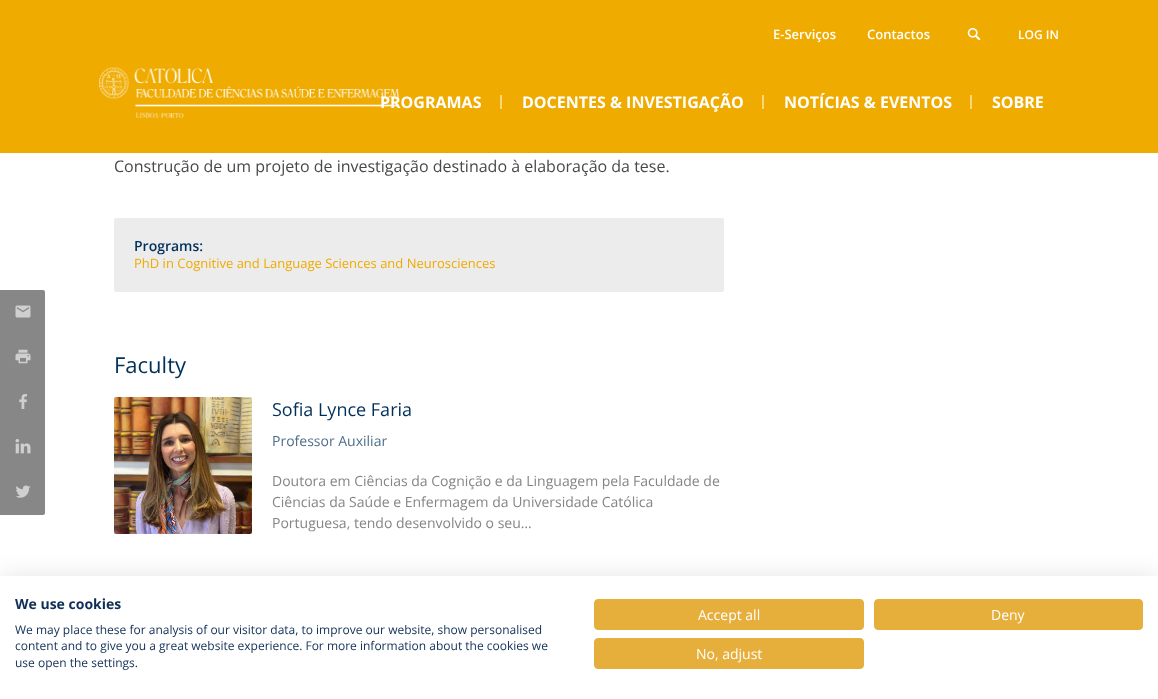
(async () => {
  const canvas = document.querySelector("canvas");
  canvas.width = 1158;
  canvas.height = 699;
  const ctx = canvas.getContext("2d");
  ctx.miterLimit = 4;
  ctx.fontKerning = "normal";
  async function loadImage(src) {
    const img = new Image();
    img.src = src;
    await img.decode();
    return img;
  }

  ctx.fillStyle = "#ffffff";
  ctx.fillRect(0, 0, 1158, 699);
  ctx.fillStyle = "#f0ab00";
  ctx.fillRect(0, 0, 1158, 153);
  ctx.drawImage(await loadImage("img/1.png"), 967, 28, 14, 13);
  for (const [x, y, w, h, color] of [
    [500, 95, 2, 14, "#f8d580"],
    [762, 95, 2, 14, "#f8d580"],
    [970, 95, 2, 14, "#f8d580"],
  ]) {
    ctx.fillStyle = color;
    ctx.fillRect(x, y, w, h);
  }
  ctx.fillStyle = "#ececec";
  ctx.beginPath();
  ctx.roundRect(114, 218, 610, 74, 2);
  ctx.fill();
  ctx.fillStyle = "#878787";
  ctx.beginPath();
  ctx.roundRect(0, 290, 45, 45, [0, 2, 0, 0]);
  ctx.fill();
  ctx.drawImage(await loadImage("img/3.png"), 15, 305, 16, 13);
  ctx.fillRect(0, 335, 45, 135);
  ctx.drawImage(await loadImage("img/4.png"), 15, 349, 16, 15);
  ctx.drawImage(await loadImage("img/5.png"), 19, 394, 8, 15);
  ctx.drawImage(await loadImage("img/6.png"), 15, 439, 16, 15);
  ctx.beginPath();
  ctx.roundRect(0, 470, 45, 45, [0, 0, 2, 0]);
  ctx.fill();
  ctx.drawImage(await loadImage("img/7.png"), 16, 485, 15, 13);
  ctx.drawImage(await loadImage("img/8.png"), 114, 397, 138, 137);
  ctx.fillStyle = "rgba(0, 0, 0, 0.1)";
  ctx.filter = "blur(12px)";
  ctx.beginPath();
  ctx.rect(0, 576, 1158, 123);
  ctx.fill();
  ctx.filter = "none";
  ctx.fillStyle = "#ffffff";
  ctx.fillRect(0, 576, 1158, 123);
  ctx.fillStyle = "#e6ae3b";
  ctx.beginPath();
  ctx.roundRect(594.5, 599.5, 269, 30, 3.5);
  ctx.fill();
  ctx.strokeStyle = "#e6ae3b";
  ctx.stroke();
  ctx.beginPath();
  ctx.roundRect(874.5, 599.5, 268, 30, 3.5);
  ctx.fill();
  ctx.stroke();
  ctx.beginPath();
  ctx.roundRect(594.5, 638.5, 269, 30, 3.5);
  ctx.fill();
  ctx.stroke();
  ctx.font = "600 13px Open Sans";
  ctx.fillStyle = "#ffffff";
  ctx.fillText("E-Serviços", 773, 39);
  ctx.fillText("Contactos", 867, 39);
  ctx.font = "600 12px Open Sans";
  ctx.fillText("LOG IN", 1018, 39);
  ctx.font = "bold 16px Open Sans";
  ctx.fillText("PROGRAMAS", 380, 108);
  ctx.drawImage(await loadImage("img/2.png"), 99, 67, 300, 52);
  for (const [text, x, y] of [
    ["DOCENTES & INVESTIGAÇÃO", 522, 108],
    ["NOTÍCIAS & EVENTOS", 784, 108],
    ["SOBRE", 992, 108],
  ]) {
    ctx.fillText(text, x, y);
  }
  ctx.font = "16px Open Sans";
  ctx.fillStyle = "#494949";
  ctx.fillText("Construção de um projeto de investigação destinado à elaboração da tese.", 114, 172);
  ctx.font = "600 14px Open Sans";
  ctx.fillStyle = "#003059";
  ctx.fillText("Programs:", 134, 251);
  ctx.font = "13px Open Sans";
  ctx.fillStyle = "#f0ab00";
  ctx.fillText("PhD in Cognitive and Language Sciences and Neurosciences", 134, 268);
  ctx.font = "22px Open Sans";
  ctx.fillStyle = "#003059";
  ctx.fillText("Faculty", 114, 373);
  ctx.font = "18px Open Sans";
  ctx.fillText("Sofia Lynce Faria", 272, 416);
  ctx.font = "14px Open Sans";
  ctx.fillStyle = "#4d6e8b";
  ctx.fillText("Professor Auxiliar", 272, 446);
  ctx.fillStyle = "#858585";
  for (const [text, x, y] of [
    ["Doutora em Ciências da Cognição e da Linguagem pela Faculdade de", 272, 486],
    ["Ciências da Saúde e Enfermagem da Universidade Católica", 272, 507],
    ["Portuguesa, tendo desenvolvido o seu…", 272, 528],
  ]) {
    ctx.fillText(text, x, y);
  }
  ctx.font = "bold 14px Open Sans";
  ctx.fillStyle = "#102f56";
  ctx.fillText("We use cookies", 15, 609);
  ctx.font = "12px Open Sans";
  for (const [text, x, y] of [
    ["We may place these for analysis of our visitor data, to improve our website, show personalised", 15, 634],
    ["content and to give you a great website experience. For more information about the cookies we", 15, 650],
    ["use open the settings.", 15, 667],
  ]) {
    ctx.fillText(text, x, y);
  }
  ctx.font = "14px Open Sans";
  ctx.fillStyle = "#ffffff";
  for (const [text, x, y] of [
    ["Accept all", 698, 620],
    ["Deny", 991, 620],
    ["No, adjust", 696, 659],
  ]) {
    ctx.fillText(text, x, y);
  }
})();
